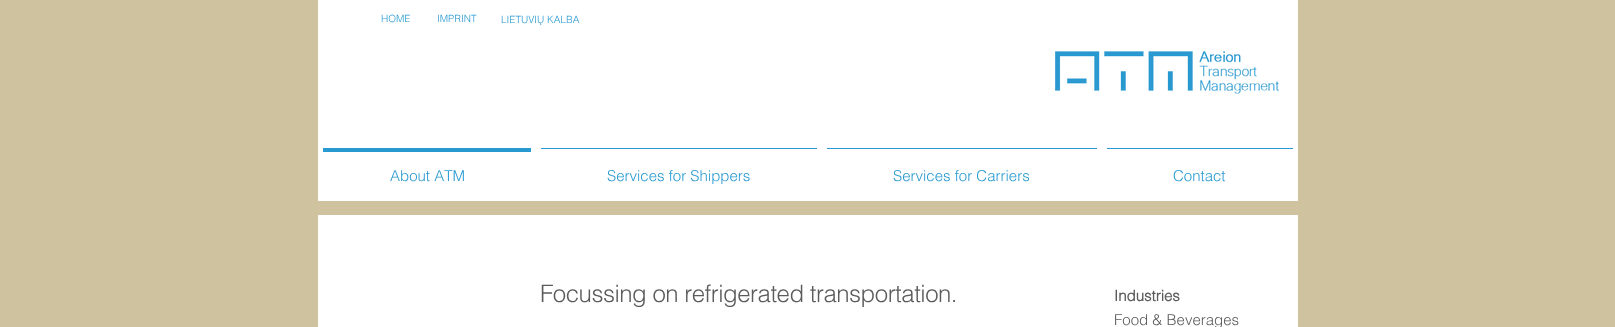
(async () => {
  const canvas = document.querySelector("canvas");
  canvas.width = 1615;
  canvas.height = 327;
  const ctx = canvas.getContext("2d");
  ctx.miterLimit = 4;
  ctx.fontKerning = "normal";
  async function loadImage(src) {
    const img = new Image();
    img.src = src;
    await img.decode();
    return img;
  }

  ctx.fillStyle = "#cfc29f";
  ctx.fillRect(0, 0, 1615, 327);
  ctx.fillStyle = "#ffffff";
  ctx.fillRect(318, 0, 980, 201);
  ctx.drawImage(await loadImage("img/1.png"), 1055, 51, 224, 43);
  for (const [x, y, w, h, color] of [
    [323, 148, 208, 4, "#2899d1"],
    [541, 148, 276, 1, "#2899d1"],
    [827, 148, 270, 1, "#2899d1"],
    [1107, 148, 186, 1, "#2899d1"],
    [318, 215, 980, 112, "#ffffff"],
  ]) {
    ctx.fillStyle = color;
    ctx.fillRect(x, y, w, h);
  }
  ctx.font = "300 10px helvetica";
  ctx.fillStyle = "#2899d1";
  for (const [text, x, y] of [
    ["HOME", 381, 22],
    ["IMPRINT", 437, 22],
    ["LIETUVIŲ KALBA", 501, 23],
  ]) {
    ctx.fillText(text, x, y);
  }
  ctx.font = "300 15px helvetica";
  for (const [text, x, y] of [
    ["About ATM", 390, 181],
    ["Services for Shippers", 607, 181],
    ["Services for Carriers", 893, 181],
    ["Contact", 1173, 181],
  ]) {
    ctx.fillText(text, x, y);
  }
  ctx.letterSpacing = "-0.5px";
  ctx.font = "300 24px helvetica";
  ctx.fillStyle = "#5b5b5b";
  ctx.fillText("Focussing on refrigerated transportation.", 540, 302);
  ctx.letterSpacing = "0px";
  ctx.font = "bold 15px helvetica";
  ctx.fillText("Industries", 1114, 301);
  ctx.font = "300 15px helvetica";
  ctx.fillText("Food & Beverages", 1114, 325);
})();
